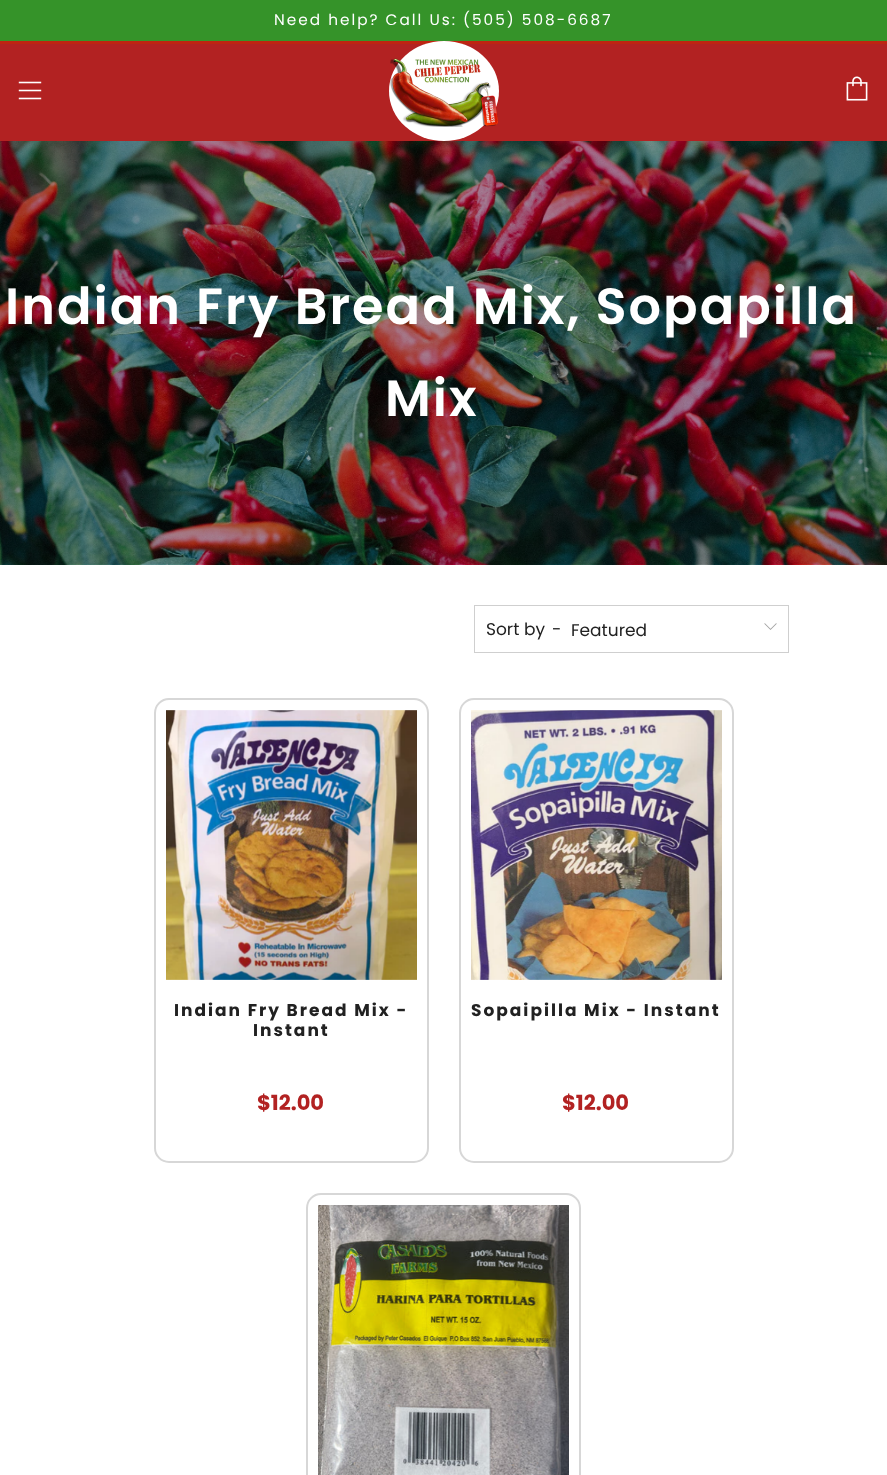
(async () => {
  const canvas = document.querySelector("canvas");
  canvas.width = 887;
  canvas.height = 1475;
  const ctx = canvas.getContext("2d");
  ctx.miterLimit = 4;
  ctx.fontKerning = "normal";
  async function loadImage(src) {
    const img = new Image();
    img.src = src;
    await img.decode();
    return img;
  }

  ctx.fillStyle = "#ffffff";
  ctx.fillRect(0, 0, 887, 1475);
  for (const [x, y, w, h, color] of [
    [0, 0, 887, 41, "#359329"],
    [0, 44, 887, 97, "#b22222"],
    [0, 41, 887, 3, "#be2511"],
  ]) {
    ctx.fillStyle = color;
    ctx.fillRect(x, y, w, h);
  }
  ctx.drawImage(await loadImage("img/1.png"), 18, 81, 24, 19);
  ctx.fillStyle = "#ffffff";
  ctx.beginPath();
  ctx.ellipse(444, 91, 55, 50, 0, 0, Math.PI * 2);
  ctx.fill();
  ctx.drawImage(await loadImage("img/2.png"), 390, 58, 108, 69);
  ctx.drawImage(await loadImage("img/3.png"), 846, 76, 22, 25);
  ctx.drawImage(await loadImage("img/4.png"), 0, 141, 887, 424);
  ctx.strokeStyle = "#cfcfcf";
  ctx.strokeRect(474.5, 605.5, 314, 47);
  ctx.drawImage(await loadImage("img/5.png"), 764, 623, 13, 7);
  ctx.beginPath();
  ctx.roundRect(155, 699, 273, 463, 14);
  ctx.strokeStyle = "#d7d7d7";
  ctx.lineWidth = 2;
  ctx.stroke();
  ctx.drawImage(await loadImage("img/6.png"), 166, 710, 251, 270);
  ctx.beginPath();
  ctx.roundRect(460, 699, 273, 463, 14);
  ctx.stroke();
  ctx.drawImage(await loadImage("img/7.png"), 471, 710, 251, 270);
  ctx.beginPath();
  ctx.roundRect(307, 1194, 273, 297, 14);
  ctx.stroke();
  ctx.drawImage(await loadImage("img/8.png"), 318, 1205, 251, 270);
  ctx.letterSpacing = "2px";
  ctx.font = "15.3px Poppins";
  ctx.fillText("Need help? Call Us: (505) 508-6687", 274, 25);
  ctx.font = "600 51px Poppins";
  ctx.fillText("Indian Fry Bread Mix, Sopapilla", 5, 324);
  ctx.fillText("Mix", 385, 416);
  ctx.letterSpacing = "0px";
  ctx.font = "17px Poppins";
  ctx.fillStyle = "#212121";
  for (const [text, x, y] of [
    ["Sort by", 486, 635],
    ["-", 552, 635],
    ["Featured", 571, 636],
  ]) {
    ctx.fillText(text, x, y);
  }
  ctx.letterSpacing = "2px";
  ctx.font = "bold 17px Poppins";
  ctx.fillText("Indian Fry Bread Mix -", 174, 1016);
  ctx.fillText("Instant", 253, 1036);
  ctx.letterSpacing = "0px";
  ctx.font = "bold 21px Poppins";
  ctx.fillStyle = "#b22222";
  ctx.fillText("$12.00", 257, 1110);
  ctx.letterSpacing = "2px";
  ctx.font = "bold 17px Poppins";
  ctx.fillStyle = "#212121";
  ctx.fillText("Sopaipilla Mix - Instant", 471, 1016);
  ctx.letterSpacing = "0px";
  ctx.font = "bold 21px Poppins";
  ctx.fillStyle = "#b22222";
  ctx.fillText("$12.00", 562, 1110);
})();
